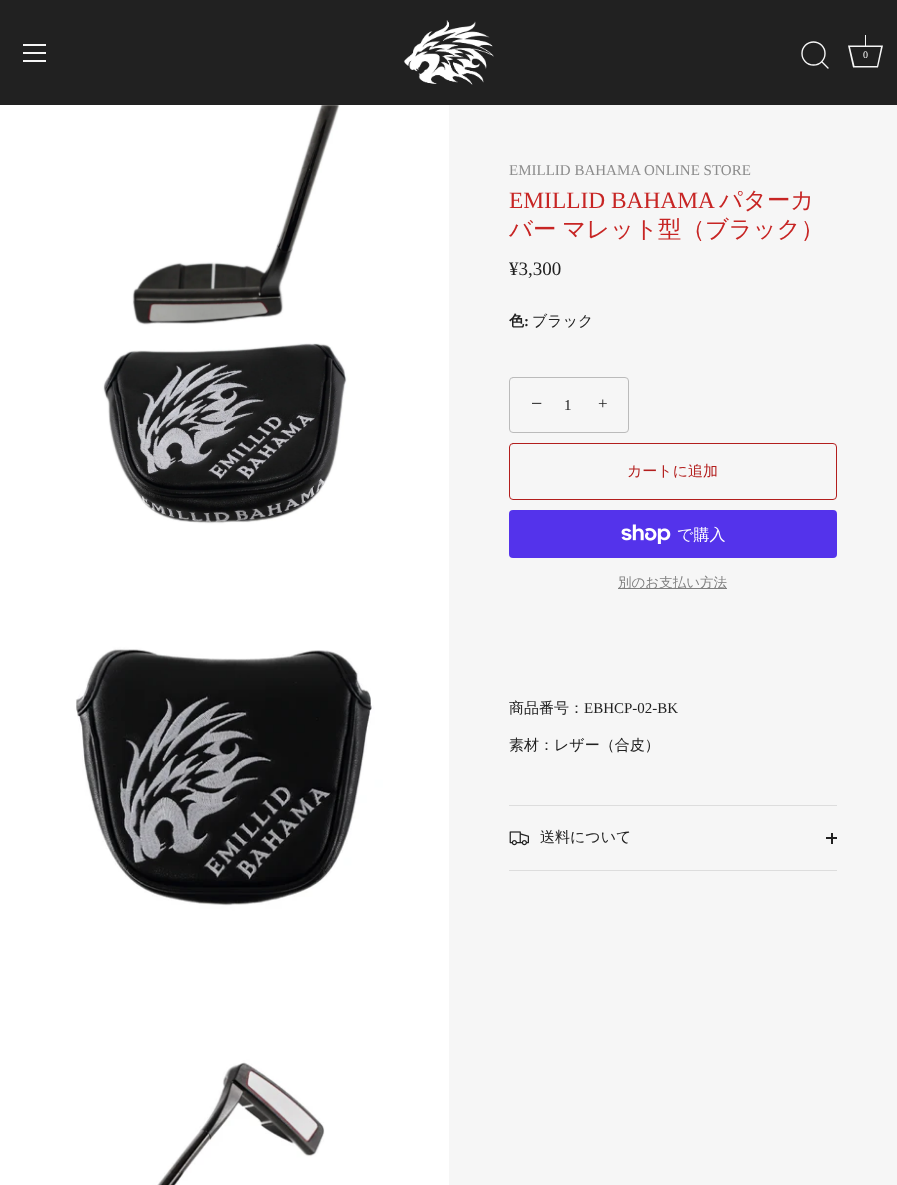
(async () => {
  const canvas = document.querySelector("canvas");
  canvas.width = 897;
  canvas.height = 1185;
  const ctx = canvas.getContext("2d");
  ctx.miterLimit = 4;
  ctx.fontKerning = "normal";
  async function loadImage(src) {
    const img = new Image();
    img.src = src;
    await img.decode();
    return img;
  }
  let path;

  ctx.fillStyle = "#f6f6f6";
  ctx.fillRect(0, 0, 897, 1185);
  for (const [x, y, w, h, color] of [
    [0, 0, 897, 105, "#212121"],
    [23, 44, 23, 2, "#f6f6f6"],
    [23, 52, 23, 2, "#f6f6f6"],
    [23, 60, 23, 2, "#f6f6f6"],
  ]) {
    ctx.fillStyle = color;
    ctx.fillRect(x, y, w, h);
  }
  ctx.drawImage(await loadImage("img/1.png"), 403, 20, 91, 65);
  ctx.beginPath();
  ctx.arc(813.5, 53.5, 11.5, 0, Math.PI * 2);
  ctx.strokeStyle = "#f6f6f6";
  ctx.lineWidth = 1.4;
  ctx.stroke();
  path = new Path2D("M828 68L822 62");
  ctx.lineCap = "round";
  ctx.lineJoin = "round";
  ctx.stroke(path);
  path = new Path2D("M881 47L877 66H854.5L850 47H881M883 45.5H848L853 67.5H878Z");
  ctx.fill(path);
  ctx.fillRect(865, 35, 1, 11);
  ctx.drawImage(await loadImage("img/2.png"), 0, 105, 449, 448);
  ctx.drawImage(await loadImage("img/3.png"), 0, 553, 449, 448);
  ctx.drawImage(await loadImage("img/4.png"), 0, 1001, 449, 184);
  ctx.beginPath();
  ctx.roundRect(509.5, 377.5, 119, 55, 3.5);
  ctx.strokeStyle = "#bbbbbb";
  ctx.lineWidth = 1;
  ctx.lineJoin = "miter";
  ctx.stroke();
  ctx.beginPath();
  ctx.roundRect(509.5, 443.5, 327, 56, 3.5);
  ctx.strokeStyle = "#b31e1d";
  ctx.stroke();
  ctx.fillStyle = "#5433eb";
  ctx.beginPath();
  ctx.roundRect(509, 510, 328, 48, 4);
  ctx.fill();
  ctx.drawImage(await loadImage("img/5.png"), 621, 524, 50, 20);
  for (const [x, y, w, h, color] of [
    [618, 588, 109, 1, "#7f7f7f"],
    [509, 805, 328, 1, "#dddddd"],
    [509, 870, 328, 1, "#dddddd"],
  ]) {
    ctx.fillStyle = color;
    ctx.fillRect(x, y, w, h);
  }
  ctx.drawImage(await loadImage("img/6.png"), 509, 831, 20, 15);
  ctx.fillStyle = "#212121";
  ctx.fillRect(831, 833, 2, 11);
  ctx.fillRect(826, 837, 11, 2);
  ctx.font = "10px Liberation Serif";
  ctx.fillStyle = "#f6f6f6";
  ctx.fillText("0", 863, 58);
  ctx.font = "15px Liberation Serif";
  ctx.fillStyle = "#8c8c8c";
  ctx.fillText("EMILLID BAHAMA ONLINE STORE", 509, 175);
  ctx.font = "23.4px Liberation Serif";
  ctx.fillStyle = "#c72524";
  ctx.fillText("EMILLID BAHAMA", 509, 208);
  ctx.font = "500 23.4px WenQuanYi Zen Hei";
  ctx.fillText("パターカ", 719, 208);
  ctx.wordSpacing = "-1px";
  ctx.fillText("バー マレット型（ブラック）", 509, 237);
  ctx.wordSpacing = "0px";
  ctx.font = "19px Liberation Serif";
  ctx.fillStyle = "#212121";
  ctx.fillText("¥3,300", 509, 275);
  ctx.font = "bold 15px WenQuanYi Zen Hei";
  ctx.fillText("色", 509, 326);
  ctx.font = "bold 15px Liberation Serif";
  ctx.fillText(":", 524, 326);
  ctx.font = "500 15px WenQuanYi Zen Hei";
  ctx.fillText("ブラック", 532, 326);
  ctx.font = "20px Liberation Serif";
  ctx.fillText("−", 531, 410);
  ctx.letterSpacing = "1px";
  ctx.font = "15px Liberation Serif";
  ctx.fillText("1", 564, 410);
  ctx.letterSpacing = "0px";
  ctx.font = "17px Liberation Serif";
  ctx.fillText("+", 598, 409);
  ctx.font = "500 15px WenQuanYi Zen Hei";
  ctx.fillStyle = "#b31e1d";
  ctx.fillText("カートに追加", 627, 476);
  ctx.font = "500 16px WenQuanYi Zen Hei";
  ctx.fillStyle = "#ffffff";
  ctx.fillText("で購入", 677, 540);
  ctx.font = "500 13.5px WenQuanYi Zen Hei";
  ctx.fillStyle = "#7f7f7f";
  ctx.fillText("別のお支払い方法", 618, 587);
  ctx.font = "500 15px WenQuanYi Zen Hei";
  ctx.fillStyle = "#212121";
  ctx.fillText("商品番号：", 509, 713);
  ctx.font = "15px Liberation Serif";
  ctx.fillText("EBHCP-02-BK", 584, 713);
  ctx.font = "500 15px WenQuanYi Zen Hei";
  ctx.fillText("素材：レザー（合皮）", 509, 750);
  ctx.fillText("送料について", 540, 842);
})();
